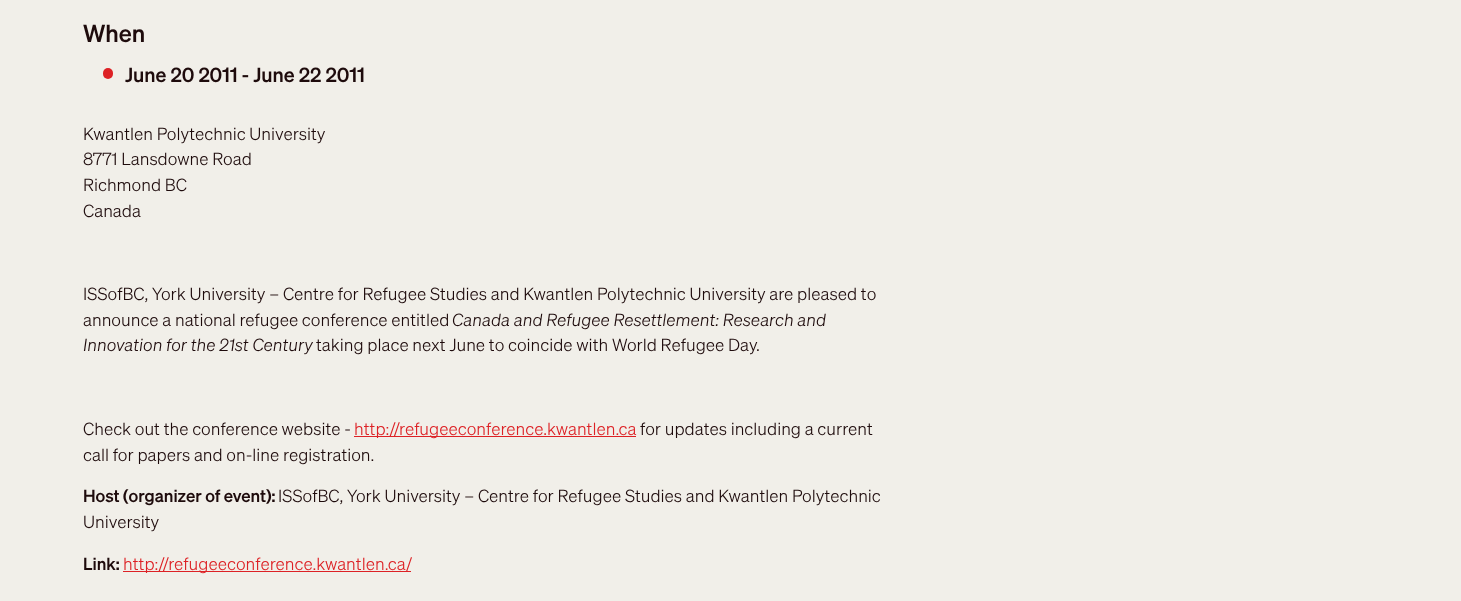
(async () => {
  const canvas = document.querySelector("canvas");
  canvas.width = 1461;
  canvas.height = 601;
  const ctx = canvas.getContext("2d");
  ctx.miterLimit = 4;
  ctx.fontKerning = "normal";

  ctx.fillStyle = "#f1efe9";
  ctx.fillRect(0, 0, 1461, 601);
  ctx.fillStyle = "#dd2125";
  ctx.beginPath();
  ctx.roundRect(103, 68, 10, 11, 5);
  ctx.fill();
  for (const [x, y, w, h, color] of [
    [354, 436, 45, 1, "#dd2125"],
    [399, 436, 237, 1, "#dd2125"],
    [123, 571, 288, 1, "#dd2125"],
  ]) {
    ctx.fillStyle = color;
    ctx.fillRect(x, y, w, h);
  }
  ctx.font = "500 24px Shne";
  ctx.fillStyle = "#1e0b0c";
  ctx.fillText("When", 83, 42);
  ctx.font = "500 20px Shne";
  ctx.fillText("June 20 2011 - June 22 2011", 125, 82);
  ctx.font = "300 17.15px Shne";
  for (const [text, x, y] of [
    ["Kwantlen Polytechnic University", 83, 140],
    ["8771 Lansdowne Road", 83, 165],
    ["Richmond BC", 83, 191],
    ["Canada", 83, 217],
    ["ISSofBC, York University – Centre for Refugee Studies and Kwantlen Polytechnic University are pleased to", 83, 300],
    ["announce a national refugee conference entitled", 83, 326],
  ]) {
    ctx.fillText(text, x, y);
  }
  ctx.font = "italic 300 17.15px Shne";
  ctx.fillText("Canada and Refugee Resettlement: Research and", 452, 326);
  ctx.fillText("Innovation for the 21st Century", 83, 351);
  ctx.font = "300 17.15px Shne";
  ctx.fillText("taking place next June to coincide with World Refugee Day.", 316, 351);
  ctx.fillText("Check out the conference website -", 83, 435);
  ctx.fillStyle = "#dd2125";
  ctx.fillText("http://", 354, 435);
  ctx.fillText("refugeeconference.kwantlen.ca", 399, 435);
  ctx.fillStyle = "#1e0b0c";
  ctx.fillText("for updates including a current", 640, 435);
  ctx.fillText("call for papers and on-line registration.", 83, 461);
  ctx.font = "500 17.15px Shne";
  ctx.fillText("Host (organizer of event):", 83, 502);
  ctx.font = "300 17.15px Shne";
  ctx.fillText("ISSofBC, York University – Centre for Refugee Studies and Kwantlen Polytechnic", 278, 502);
  ctx.fillText("University", 83, 528);
  ctx.font = "500 17.15px Shne";
  ctx.fillText("Link:", 83, 570);
  ctx.font = "300 17.15px Shne";
  ctx.fillStyle = "#dd2125";
  ctx.fillText("http://refugeeconference.kwantlen.ca/", 123, 570);
})();
